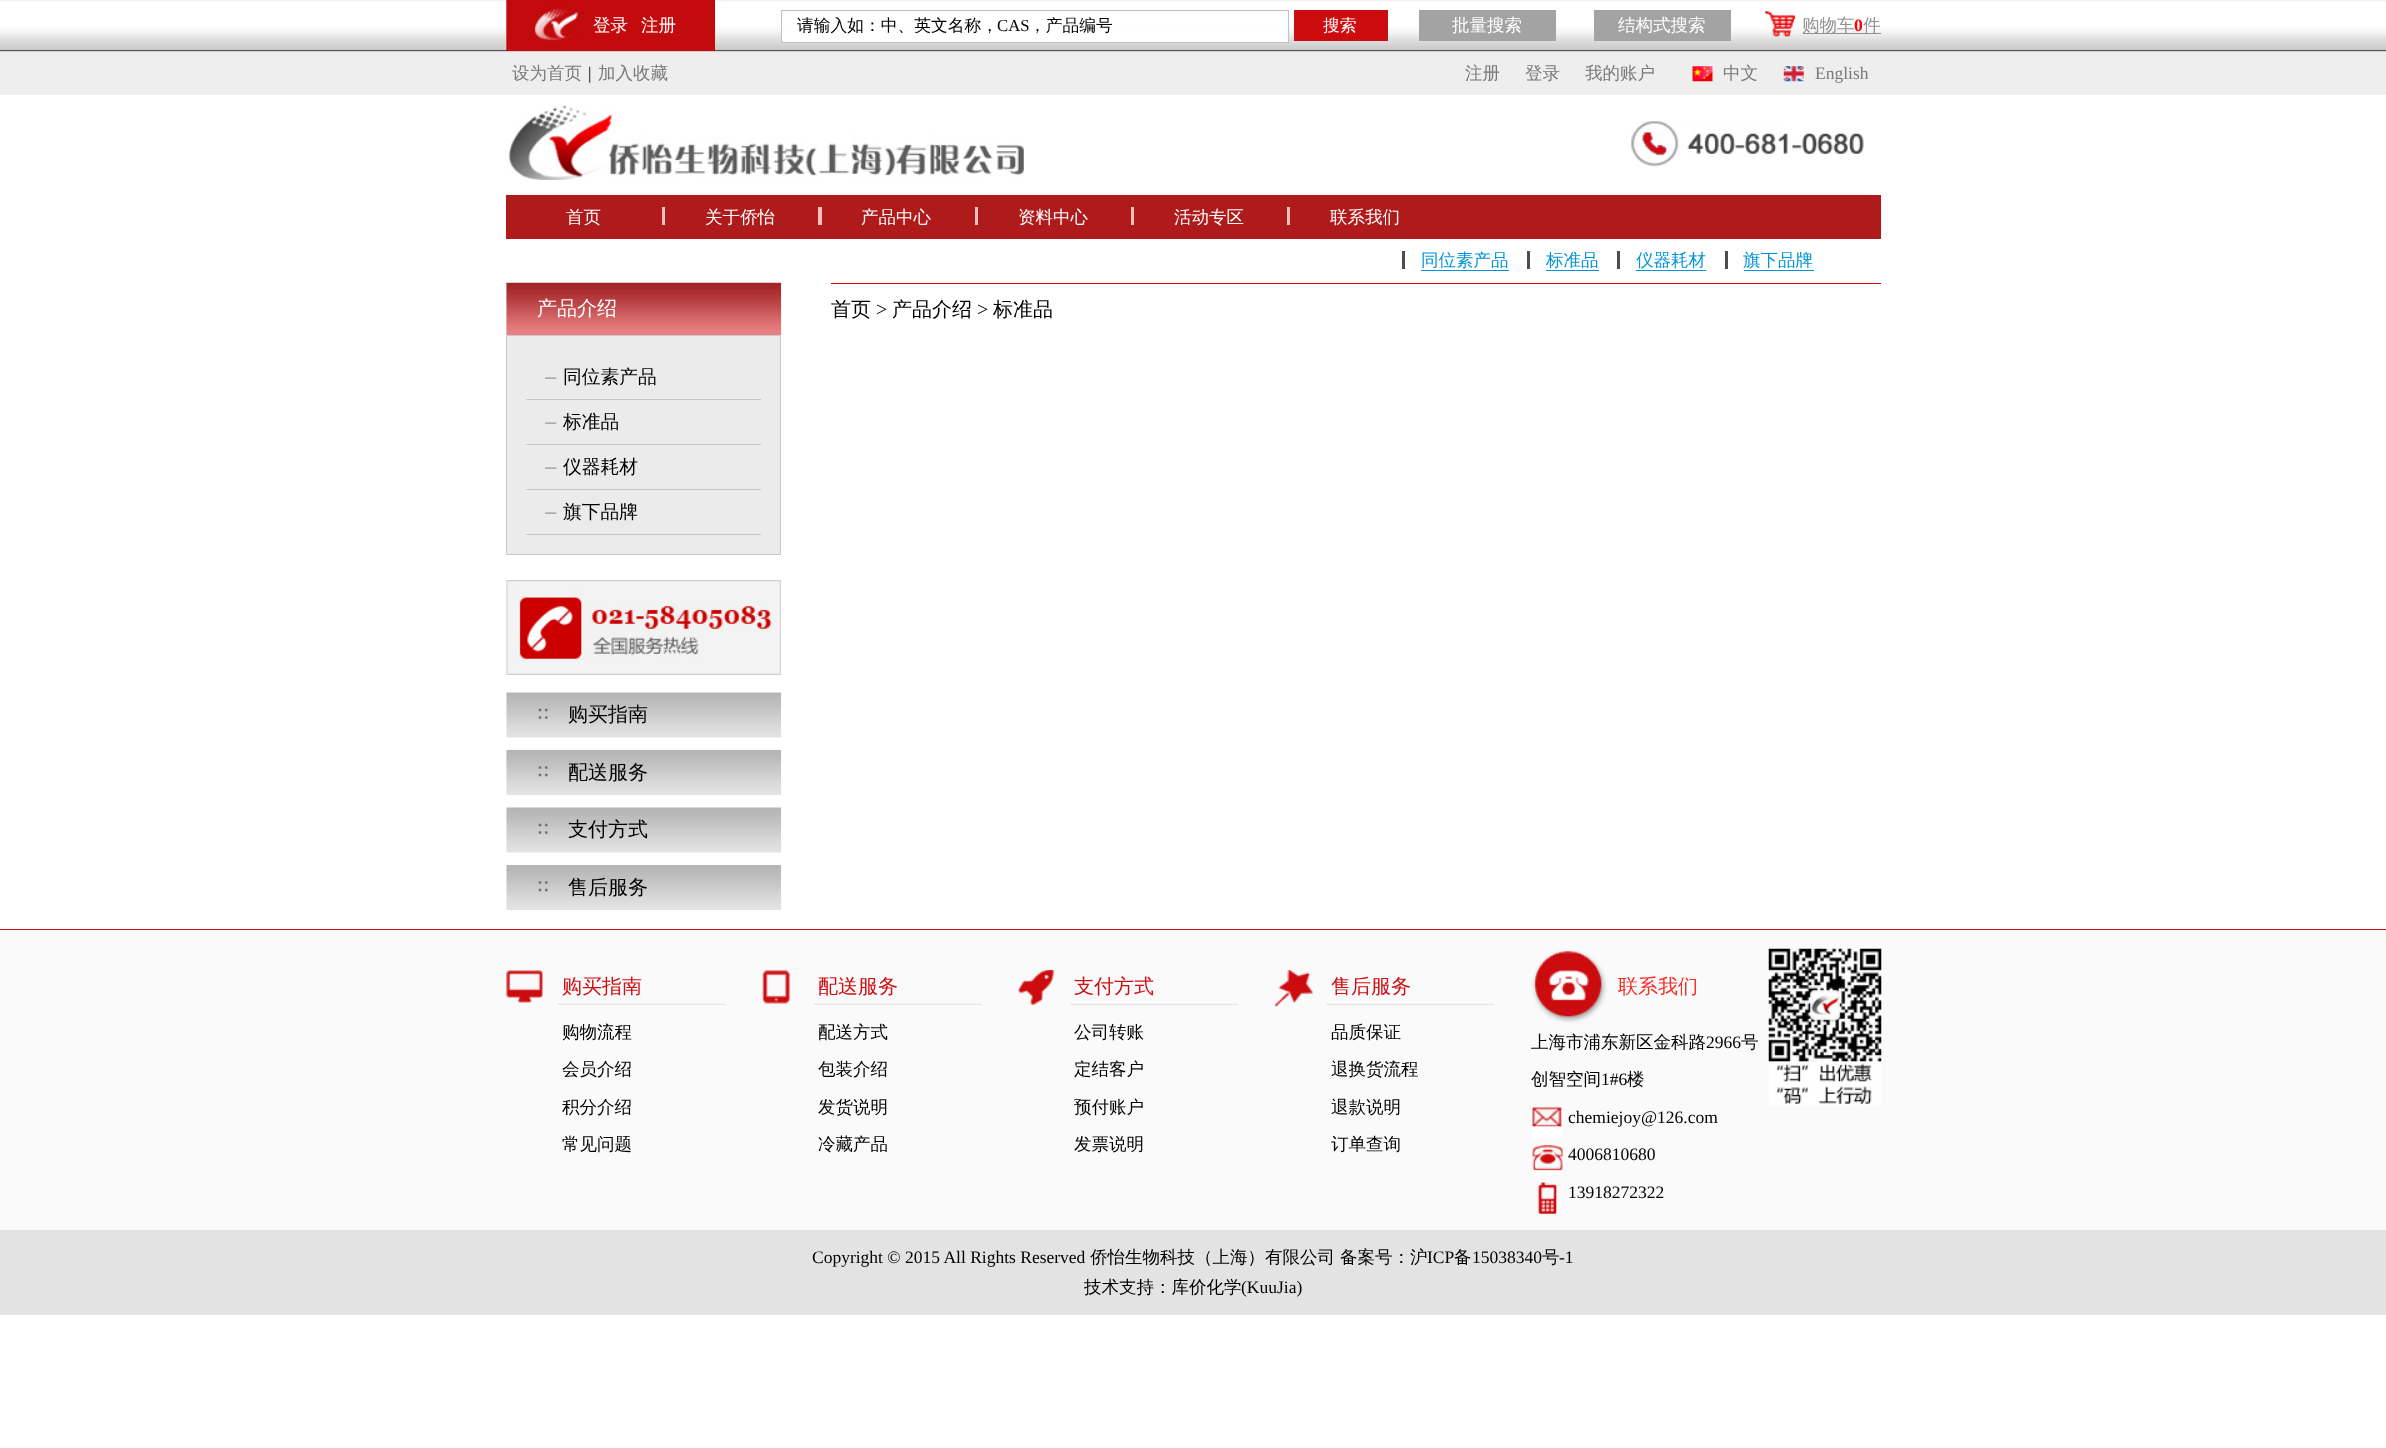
(async () => {
  const canvas = document.querySelector("canvas");
  canvas.width = 2386;
  canvas.height = 1448;
  const ctx = canvas.getContext("2d");
  ctx.miterLimit = 4;
  ctx.fontKerning = "normal";
  async function loadImage(src) {
    const img = new Image();
    img.src = src;
    await img.decode();
    return img;
  }

  ctx.fillStyle = "#ffffff";
  ctx.fillRect(0, 0, 2386, 1448);
  ctx.drawImage(await loadImage("img/1.png"), 0, 0, 2386, 52);
  ctx.drawImage(await loadImage("img/2.png"), 506, 0, 209, 51);
  ctx.fillRect(782, 27, 506, 15);
  ctx.strokeStyle = "#c0c0c0";
  ctx.strokeRect(781.5, 10.5, 507, 32);
  for (const [x, y, w, h, color] of [
    [1294, 10, 94, 31, "#cd0c0f"],
    [1419, 10, 137, 31, "#a3a3a3"],
    [1594, 10, 137, 31, "#a3a3a3"],
  ]) {
    ctx.fillStyle = color;
    ctx.fillRect(x, y, w, h);
  }
  ctx.drawImage(await loadImage("img/3.png"), 1764, 11, 32, 26);
  ctx.fillStyle = "#919191";
  ctx.fillRect(1803, 33, 78, 1);
  ctx.fillStyle = "#eeeeee";
  ctx.fillRect(0, 52, 2386, 43);
  ctx.drawImage(await loadImage("img/4.png"), 1692, 66, 21, 16);
  ctx.drawImage(await loadImage("img/5.png"), 1783, 66, 21, 16);
  ctx.drawImage(await loadImage("img/6.png"), 508, 105, 516, 75);
  ctx.drawImage(await loadImage("img/7.png"), 1631, 121, 233, 46);
  for (const [x, y, w, h, color] of [
    [506, 195, 1375, 44, "#af1a1a"],
    [662, 207, 3, 18, "#febebc"],
    [818, 207, 4, 18, "#febebc"],
    [975, 207, 3, 18, "#febebc"],
    [1131, 207, 3, 18, "#febebc"],
    [1287, 207, 3, 18, "#febebc"],
    [1402, 251, 3, 18, "#4d4d4d"],
    [1421, 270, 88, 1, "#0394d7"],
    [1527, 251, 3, 18, "#4d4d4d"],
    [1546, 270, 53, 1, "#0394d7"],
    [1617, 251, 3, 18, "#4d4d4d"],
    [1636, 270, 70, 1, "#0394d7"],
    [1725, 251, 3, 18, "#4d4d4d"],
    [1744, 270, 70, 1, "#0394d7"],
  ]) {
    ctx.fillStyle = color;
    ctx.fillRect(x, y, w, h);
  }
  ctx.drawImage(await loadImage("img/8.png"), 506, 282, 276, 53);
  ctx.fillStyle = "#ebebeb";
  ctx.beginPath();
  ctx.rect(506.5, 335.5, 274, 219);
  ctx.fill();
  ctx.strokeStyle = "#c8c8c8";
  ctx.stroke();
  ctx.drawImage(await loadImage("img/9.png"), 545, 377, 12, 2);
  ctx.fillStyle = "#c8c8c8";
  ctx.fillRect(526, 399, 235, 1);
  ctx.drawImage(await loadImage("img/9.png"), 545, 422, 12, 2);
  ctx.fillRect(526, 444, 235, 1);
  ctx.drawImage(await loadImage("img/9.png"), 545, 467, 12, 2);
  ctx.fillRect(526, 489, 235, 1);
  ctx.drawImage(await loadImage("img/9.png"), 545, 512, 12, 2);
  ctx.fillRect(526, 534, 235, 1);
  ctx.drawImage(await loadImage("img/10.png"), 506, 580, 275, 95);
  ctx.drawImage(await loadImage("img/11.png"), 506, 692, 276, 46);
  ctx.drawImage(await loadImage("img/12.png"), 506, 750, 276, 45);
  ctx.drawImage(await loadImage("img/11.png"), 506, 807, 276, 46);
  ctx.drawImage(await loadImage("img/12.png"), 506, 865, 276, 45);
  for (const [x, y, w, h, color] of [
    [831, 283, 1050, 1, "#ce0b0f"],
    [0, 930, 2386, 300, "#fafafa"],
    [0, 929, 2386, 1, "#ce0b0f"],
  ]) {
    ctx.fillStyle = color;
    ctx.fillRect(x, y, w, h);
  }
  ctx.drawImage(await loadImage("img/13.png"), 506, 970, 219, 35);
  ctx.drawImage(await loadImage("img/14.png"), 762, 970, 220, 35);
  ctx.drawImage(await loadImage("img/15.png"), 1018, 970, 220, 36);
  ctx.drawImage(await loadImage("img/16.png"), 1275, 970, 219, 37);
  ctx.drawImage(await loadImage("img/17.png"), 1531, 949, 76, 74);
  ctx.drawImage(await loadImage("img/18.png"), 1768, 948, 114, 158);
  ctx.drawImage(await loadImage("img/19.png"), 1532, 1107, 30, 31);
  ctx.drawImage(await loadImage("img/20.png"), 1532, 1145, 31, 31);
  ctx.drawImage(await loadImage("img/21.png"), 1536, 1182, 21, 32);
  ctx.fillStyle = "#e3e3e3";
  ctx.fillRect(0, 1230, 2386, 85);
  ctx.font = "500 17.5px WenQuanYi Zen Hei";
  ctx.fillStyle = "#ffffff";
  ctx.fillText("登录", 593, 31);
  ctx.fillText("注册", 641, 31);
  ctx.font = "500 16.75px WenQuanYi Zen Hei";
  ctx.fillStyle = "#000000";
  ctx.fillText("请输入如：中、英文名称，", 797, 31);
  ctx.font = "16.75px Liberation Serif";
  ctx.fillText("CAS", 997, 31);
  ctx.font = "500 16.75px WenQuanYi Zen Hei";
  ctx.fillText("，产品编号", 1029, 31);
  ctx.fillStyle = "#ffffff";
  ctx.fillText("搜索", 1323, 31);
  ctx.font = "500 17.5px WenQuanYi Zen Hei";
  ctx.fillText("批量搜索", 1452, 31);
  ctx.fillText("结构式搜索", 1618, 31);
  ctx.fillStyle = "#919191";
  ctx.fillText("购物车", 1802, 31);
  ctx.font = "bold 17.5px Liberation Serif";
  ctx.fillStyle = "#ff0000";
  ctx.fillText("0", 1854, 31);
  ctx.font = "500 17.5px WenQuanYi Zen Hei";
  ctx.fillStyle = "#919191";
  ctx.fillText("件", 1863, 31);
  ctx.fillStyle = "#797979";
  ctx.fillText("设为首页", 512, 79);
  ctx.font = "17.5px Liberation Serif";
  ctx.fillStyle = "#000000";
  ctx.fillText("|", 588, 79);
  ctx.font = "500 17.5px WenQuanYi Zen Hei";
  ctx.fillStyle = "#797979";
  for (const [text, x, y] of [
    ["加入收藏", 598, 79],
    ["注册", 1465, 79],
    ["登录", 1525, 79],
    ["我的账户", 1585, 79],
    ["中文", 1723, 79],
  ]) {
    ctx.fillText(text, x, y);
  }
  ctx.font = "17.5px Liberation Serif";
  ctx.fillText("English", 1815, 79);
  ctx.font = "500 17.5px WenQuanYi Zen Hei";
  ctx.fillStyle = "#ffffff";
  for (const [text, x, y] of [
    ["首页", 566, 223],
    ["关于侨怡", 705, 223],
    ["产品中心", 861, 223],
    ["资料中心", 1018, 223],
    ["活动专区", 1174, 223],
    ["联系我们", 1330, 223],
  ]) {
    ctx.fillText(text, x, y);
  }
  ctx.fillStyle = "#0394d7";
  for (const [text, x, y] of [
    ["同位素产品", 1421, 266],
    ["标准品", 1546, 266],
    ["仪器耗材", 1636, 266],
    ["旗下品牌", 1743, 266],
  ]) {
    ctx.fillText(text, x, y);
  }
  ctx.font = "500 20px WenQuanYi Zen Hei";
  ctx.fillStyle = "#ffffff";
  ctx.fillText("产品介绍", 537, 315);
  ctx.font = "500 18.75px WenQuanYi Zen Hei";
  ctx.fillStyle = "#000000";
  for (const [text, x, y] of [
    ["同位素产品", 563, 383],
    ["标准品", 563, 428],
    ["仪器耗材", 563, 473],
    ["旗下品牌", 563, 518],
  ]) {
    ctx.fillText(text, x, y);
  }
  ctx.font = "500 20px WenQuanYi Zen Hei";
  for (const [text, x, y] of [
    ["购买指南", 568, 721],
    ["配送服务", 568, 779],
    ["支付方式", 568, 836],
    ["售后服务", 568, 894],
    ["首页", 831, 316],
  ]) {
    ctx.fillText(text, x, y);
  }
  ctx.font = "20px Liberation Serif";
  ctx.fillText(">", 876, 316);
  ctx.font = "500 20px WenQuanYi Zen Hei";
  ctx.fillText("产品介绍", 892, 316);
  ctx.font = "20px Liberation Serif";
  ctx.fillText(">", 977, 316);
  ctx.font = "500 20px WenQuanYi Zen Hei";
  ctx.fillText("标准品", 993, 316);
  ctx.fillStyle = "#ce0d12";
  ctx.fillText("购买指南", 562, 993);
  ctx.font = "500 17.5px WenQuanYi Zen Hei";
  ctx.fillStyle = "#000000";
  for (const [text, x, y] of [
    ["购物流程", 562, 1038],
    ["会员介绍", 562, 1075],
    ["积分介绍", 562, 1113],
    ["常见问题", 562, 1150],
  ]) {
    ctx.fillText(text, x, y);
  }
  ctx.font = "500 20px WenQuanYi Zen Hei";
  ctx.fillStyle = "#ce0d12";
  ctx.fillText("配送服务", 818, 993);
  ctx.font = "500 17.5px WenQuanYi Zen Hei";
  ctx.fillStyle = "#000000";
  for (const [text, x, y] of [
    ["配送方式", 818, 1038],
    ["包装介绍", 818, 1075],
    ["发货说明", 818, 1113],
    ["冷藏产品", 818, 1150],
  ]) {
    ctx.fillText(text, x, y);
  }
  ctx.font = "500 20px WenQuanYi Zen Hei";
  ctx.fillStyle = "#ce0d12";
  ctx.fillText("支付方式", 1074, 993);
  ctx.font = "500 17.5px WenQuanYi Zen Hei";
  ctx.fillStyle = "#000000";
  for (const [text, x, y] of [
    ["公司转账", 1074, 1038],
    ["定结客户", 1074, 1075],
    ["预付账户", 1074, 1113],
    ["发票说明", 1074, 1150],
  ]) {
    ctx.fillText(text, x, y);
  }
  ctx.font = "500 20px WenQuanYi Zen Hei";
  ctx.fillStyle = "#ce0d12";
  ctx.fillText("售后服务", 1331, 993);
  ctx.font = "500 17.5px WenQuanYi Zen Hei";
  ctx.fillStyle = "#000000";
  for (const [text, x, y] of [
    ["品质保证", 1331, 1038],
    ["退换货流程", 1331, 1075],
    ["退款说明", 1331, 1113],
    ["订单查询", 1331, 1150],
  ]) {
    ctx.fillText(text, x, y);
  }
  ctx.font = "500 20px WenQuanYi Zen Hei";
  ctx.fillStyle = "#f72c25";
  ctx.fillText("联系我们", 1618, 993);
  ctx.font = "500 17.5px WenQuanYi Zen Hei";
  ctx.fillStyle = "#000000";
  ctx.fillText("上海市浦东新区金科路", 1531, 1048);
  ctx.font = "17.5px Liberation Serif";
  ctx.fillText("2966", 1706, 1048);
  ctx.font = "500 17.5px WenQuanYi Zen Hei";
  ctx.fillText("号", 1741, 1048);
  ctx.fillText("创智空间", 1531, 1085);
  ctx.font = "17.5px Liberation Serif";
  ctx.fillText("1#6", 1601, 1085);
  ctx.font = "500 17.5px WenQuanYi Zen Hei";
  ctx.fillText("楼", 1627, 1085);
  ctx.font = "17.5px Liberation Serif";
  for (const [text, x, y] of [
    ["chemiejoy@126.com", 1568, 1123],
    ["4006810680", 1568, 1160],
    ["13918272322", 1568, 1198],
    ["Copyright © 2015 All Rights Reserved", 812, 1263],
  ]) {
    ctx.fillText(text, x, y);
  }
  ctx.font = "500 17.5px WenQuanYi Zen Hei";
  ctx.fillText("侨怡生物科技（上海）有限公司", 1090, 1263);
  ctx.fillText("备案号：沪", 1340, 1263);
  ctx.font = "17.5px Liberation Serif";
  ctx.fillText("ICP", 1427, 1263);
  ctx.font = "500 17.5px WenQuanYi Zen Hei";
  ctx.fillText("备", 1454, 1263);
  ctx.font = "17.5px Liberation Serif";
  ctx.fillText("15038340", 1472, 1263);
  ctx.font = "500 17.5px WenQuanYi Zen Hei";
  ctx.fillText("号", 1542, 1263);
  ctx.font = "17.5px Liberation Serif";
  ctx.fillText("-1", 1559, 1263);
  ctx.font = "500 17.5px WenQuanYi Zen Hei";
  ctx.fillText("技术支持：库价化学", 1084, 1293);
  ctx.font = "17.5px Liberation Serif";
  ctx.fillText("(KuuJia)", 1241, 1293);
})();
